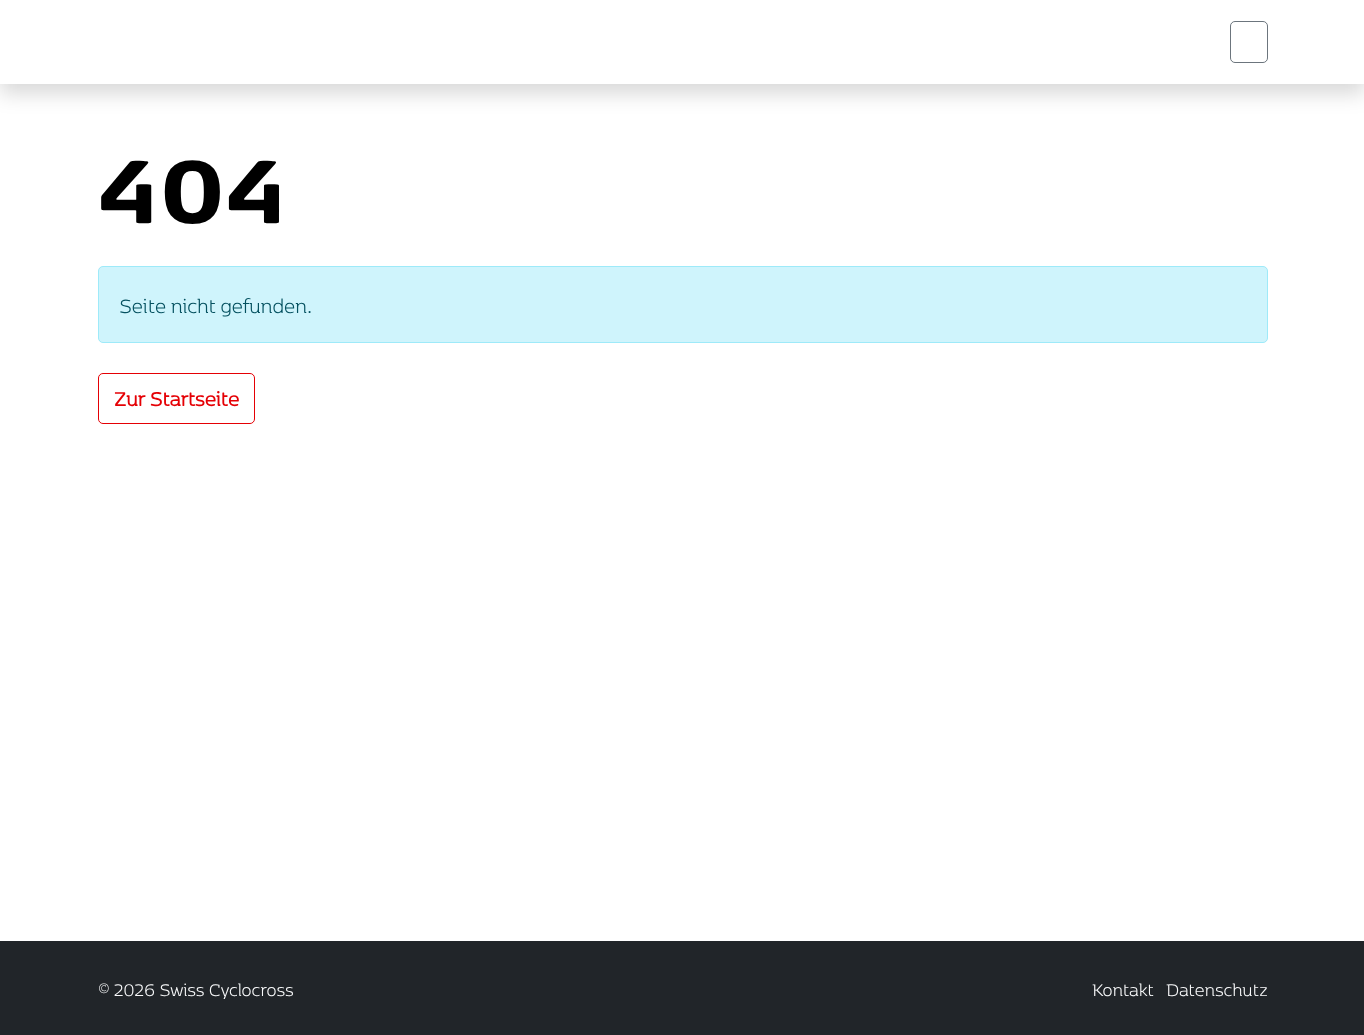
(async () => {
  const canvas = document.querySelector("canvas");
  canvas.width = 1364;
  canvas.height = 1035;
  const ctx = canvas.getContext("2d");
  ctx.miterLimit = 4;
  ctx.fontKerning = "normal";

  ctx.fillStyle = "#ffffff";
  ctx.fillRect(0, 0, 1364, 1035);
  ctx.fillStyle = "rgba(0, 0, 0, 0.15)";
  ctx.filter = "blur(10px)";
  ctx.beginPath();
  ctx.rect(0, 10, 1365, 84);
  ctx.fill();
  ctx.filter = "none";
  ctx.fillStyle = "#ffffff";
  ctx.fillRect(0, 0, 1364, 84);
  ctx.beginPath();
  ctx.roundRect(1230.5, 21.5, 37, 41, 4.5);
  ctx.strokeStyle = "#6c757d";
  ctx.stroke();
  ctx.fillStyle = "#cff4fc";
  ctx.beginPath();
  ctx.roundRect(98.5, 266.5, 1169, 76, 4.5);
  ctx.fill();
  ctx.strokeStyle = "#9eeaf9";
  ctx.stroke();
  ctx.beginPath();
  ctx.roundRect(98.5, 373.5, 156, 50, 4.5);
  ctx.strokeStyle = "#e50005";
  ctx.stroke();
  ctx.fillStyle = "#212529";
  ctx.fillRect(0, 941, 1364, 94);
  ctx.font = "bold 105px 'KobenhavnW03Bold'";
  ctx.fillStyle = "#000000";
  ctx.fillText("404", 98, 223);
  ctx.font = "300 22.5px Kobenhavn";
  ctx.fillStyle = "#055160";
  ctx.fillText("Seite nicht gefunden.", 119, 313);
  ctx.font = "bold 22.5px Kobenhavn";
  ctx.fillStyle = "#e50005";
  ctx.fillText("Zur Startseite", 114, 406);
  ctx.font = "300 19.75px Kobenhavn";
  ctx.fillStyle = "#f8f9fa";
  for (const [text, x, y] of [
    ["© 2026 Swiss Cyclocross", 98, 996],
    ["Kontakt", 1092, 996],
    ["Datenschutz", 1166, 996],
  ]) {
    ctx.fillText(text, x, y);
  }
})();
